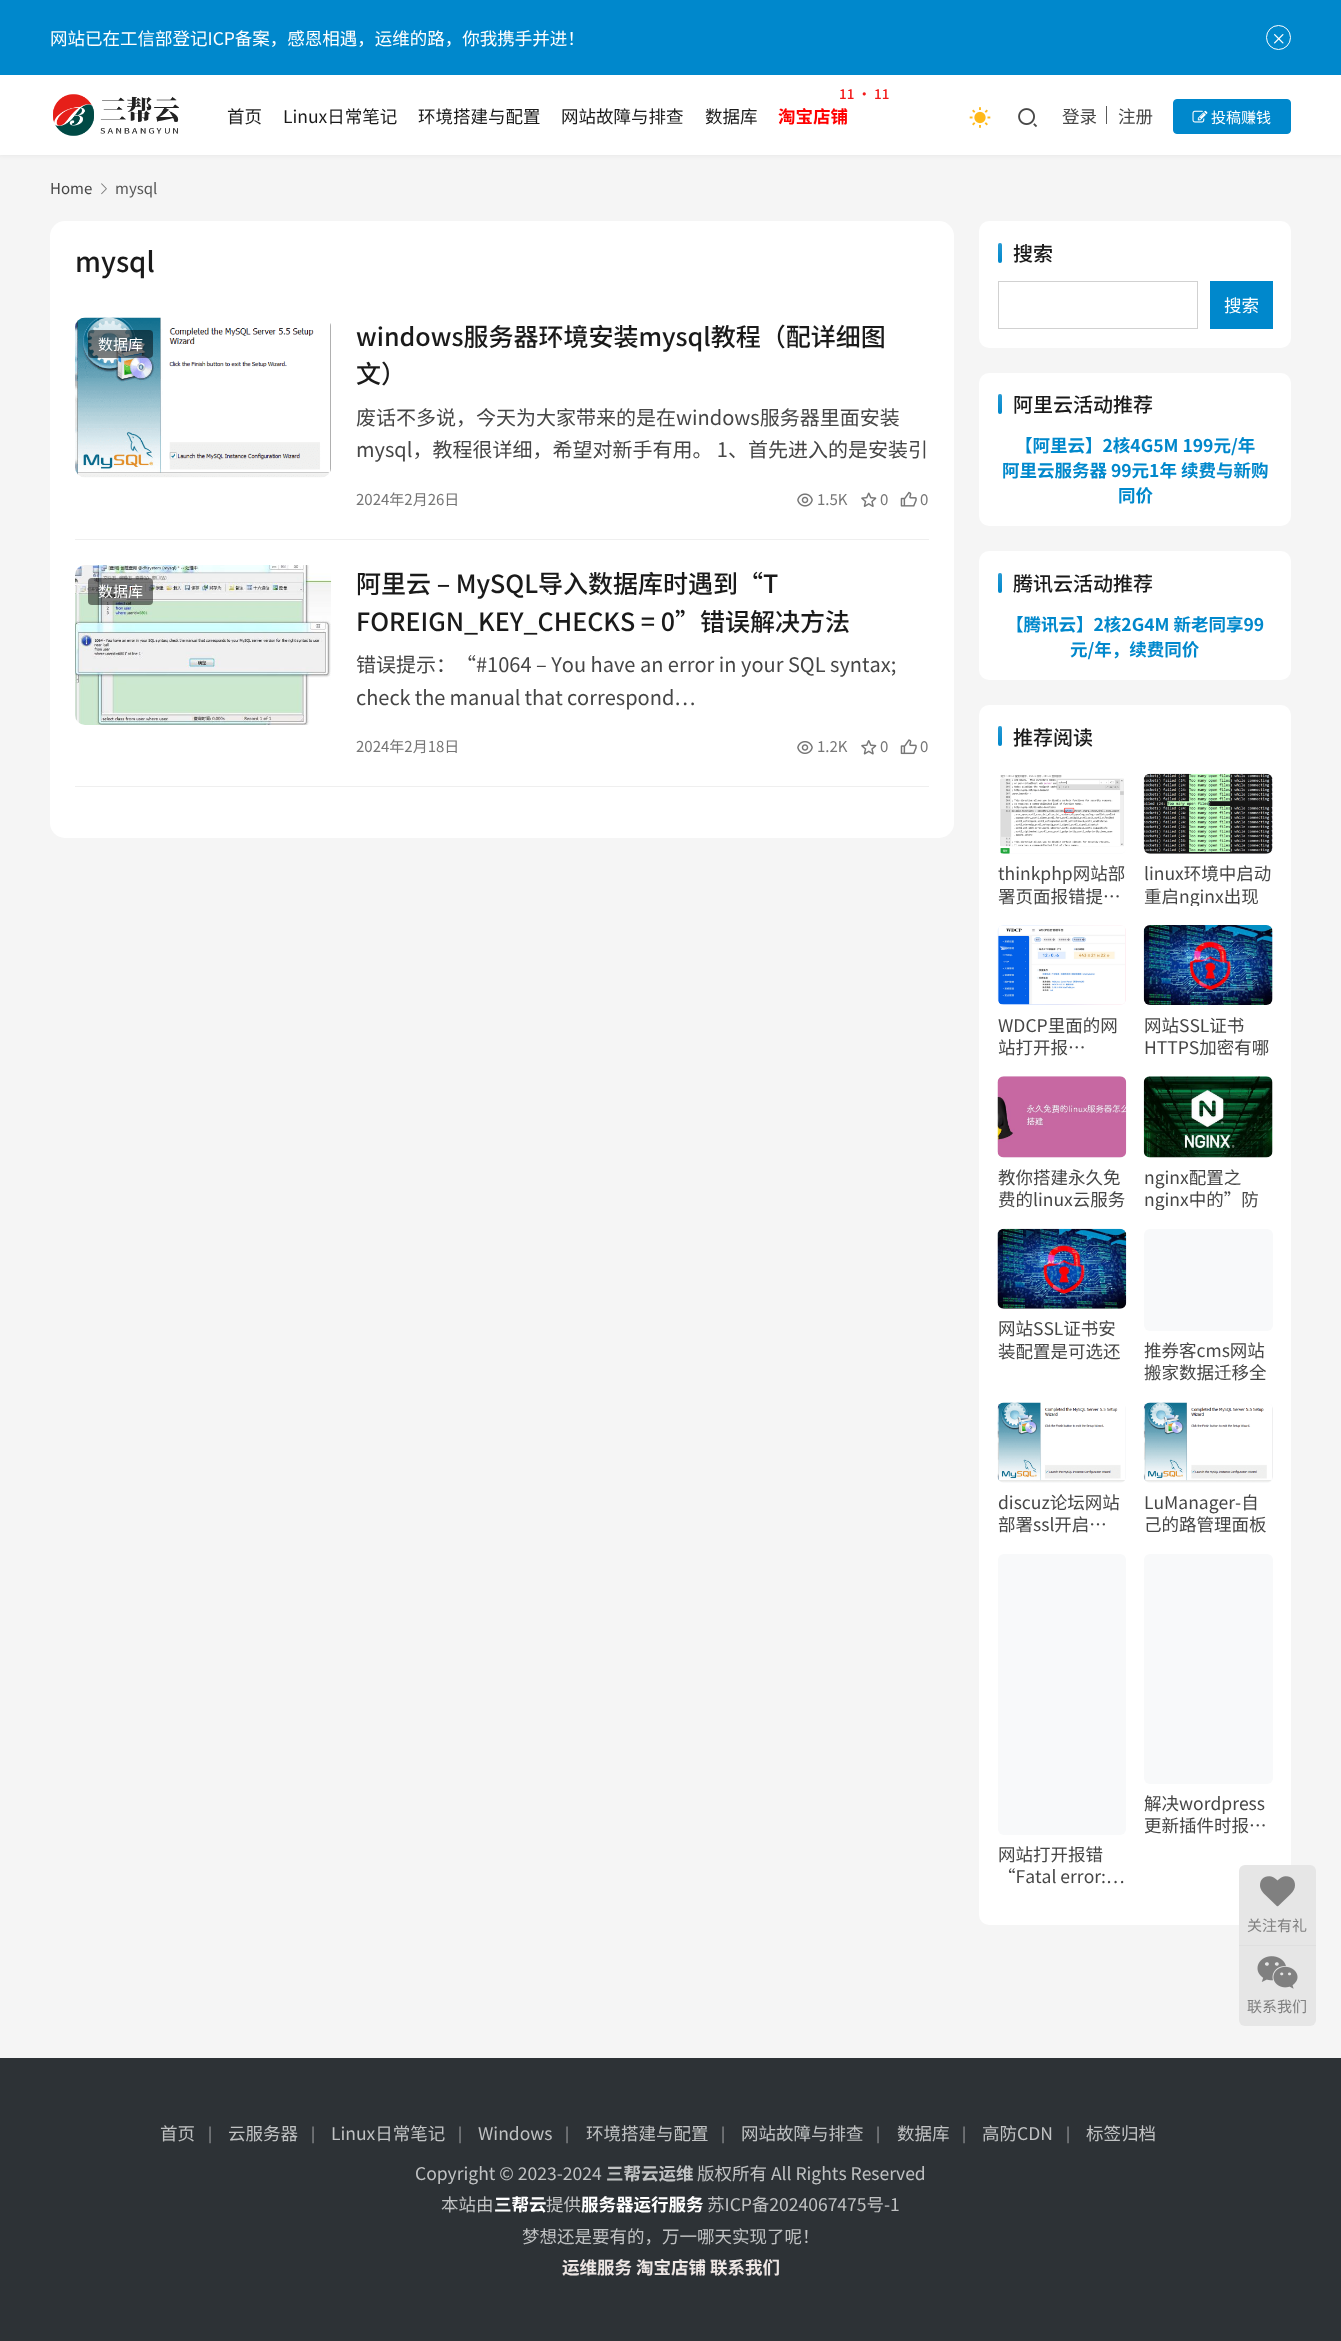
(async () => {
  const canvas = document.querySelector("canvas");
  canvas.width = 1341;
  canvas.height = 2341;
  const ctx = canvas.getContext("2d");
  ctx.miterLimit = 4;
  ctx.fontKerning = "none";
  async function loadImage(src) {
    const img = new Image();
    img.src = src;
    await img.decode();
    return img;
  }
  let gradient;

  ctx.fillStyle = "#f5f5f5";
  ctx.fillRect(0, 0, 1341, 2341);
  ctx.fillStyle = "rgba(26, 26, 26, 0.06)";
  ctx.filter = "blur(2px)";
  ctx.beginPath();
  ctx.rect(-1, 74, 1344, 82);
  ctx.fill();
  ctx.filter = "none";
  ctx.fillStyle = "#0088cc";
  ctx.fillRect(0, 0, 1341, 75);
  ctx.beginPath();
  ctx.arc(1278.5, 37.5, 12, 0, Math.PI * 2);
  ctx.strokeStyle = "#ffffff";
  ctx.stroke();
  ctx.drawImage(await loadImage("img/1.png"), 1274, 34, 10, 10);
  ctx.fillStyle = "#ffffff";
  ctx.fillRect(0, 75, 1341, 80);
  ctx.drawImage(await loadImage("img/2.png"), 53, 94, 126, 42);
  ctx.drawImage(await loadImage("img/3.png"), 969, 107, 22, 21);
  ctx.drawImage(await loadImage("img/4.png"), 1018, 108, 20, 20);
  ctx.fillStyle = "#5a5a5a";
  ctx.fillRect(1106, 106, 1, 18);
  ctx.fillStyle = "#0088cc";
  ctx.beginPath();
  ctx.roundRect(1173.5, 99.5, 117, 34, 3.5);
  ctx.fill();
  ctx.strokeStyle = "#0088cc";
  ctx.stroke();
  ctx.drawImage(await loadImage("img/5.png"), 1192, 110, 16, 13);
  ctx.drawImage(await loadImage("img/6.png"), 101, 183, 6, 12);
  ctx.fillStyle = "#ffffff";
  ctx.beginPath();
  ctx.roundRect(50, 221, 904, 617, 15);
  ctx.fill();
  ctx.fillStyle = "#efefef";
  ctx.fillRect(75, 539, 854, 1);
  ctx.drawImage(await loadImage("img/7.png"), 75, 317, 256, 161);
  ctx.fillStyle = "rgba(0, 0, 0, 0.5)";
  ctx.beginPath();
  ctx.roundRect(88, 330, 65, 28, 4);
  ctx.fill();
  ctx.drawImage(await loadImage("img/8.png"), 797, 493, 16, 14);
  ctx.drawImage(await loadImage("img/9.png"), 861, 492, 16, 15);
  ctx.drawImage(await loadImage("img/10.png"), 900, 491, 17, 16);
  ctx.fillStyle = "#efefef";
  ctx.fillRect(75, 786, 854, 1);
  ctx.drawImage(await loadImage("img/11.png"), 75, 565, 257, 160);
  ctx.fillStyle = "rgba(0, 0, 0, 0.5)";
  ctx.beginPath();
  ctx.roundRect(88, 578, 65, 27, 4);
  ctx.fill();
  ctx.drawImage(await loadImage("img/12.png"), 797, 741, 16, 13);
  ctx.drawImage(await loadImage("img/13.png"), 861, 740, 16, 15);
  ctx.drawImage(await loadImage("img/14.png"), 900, 739, 17, 16);
  ctx.fillStyle = "#ffffff";
  ctx.beginPath();
  ctx.roundRect(979, 221, 312, 127, 10);
  ctx.fill();
  ctx.fillStyle = "#0088cc";
  ctx.beginPath();
  ctx.roundRect(998, 243, 4, 20, 2);
  ctx.fill();
  gradient = ctx.createLinearGradient(999, 243, 999, 263);
  gradient.addColorStop(0, "rgba(255, 255, 255, 0.15)");
  gradient.addColorStop(1, "rgba(255, 255, 255, 0)");
  ctx.fillStyle = gradient;
  ctx.beginPath();
  ctx.roundRect(998, 243, 4, 20, 2);
  ctx.fill();
  ctx.strokeStyle = "#d1d1d1";
  ctx.strokeRect(998.5, 281.5, 199, 47);
  ctx.fillStyle = "#0088cc";
  ctx.fillRect(1210, 281, 63, 48);
  ctx.fillStyle = "#ffffff";
  ctx.beginPath();
  ctx.roundRect(979, 373, 312, 153, 10);
  ctx.fill();
  ctx.fillStyle = "#0088cc";
  ctx.beginPath();
  ctx.roundRect(998, 394, 4, 20, 2);
  ctx.fill();
  gradient = ctx.createLinearGradient(999, 394, 999, 414);
  gradient.addColorStop(0, "rgba(255, 255, 255, 0.15)");
  gradient.addColorStop(1, "rgba(255, 255, 255, 0)");
  ctx.fillStyle = gradient;
  ctx.beginPath();
  ctx.roundRect(998, 394, 4, 20, 2);
  ctx.fill();
  ctx.fillStyle = "#ffffff";
  ctx.beginPath();
  ctx.roundRect(979, 551, 312, 129, 10);
  ctx.fill();
  ctx.fillStyle = "#0088cc";
  ctx.beginPath();
  ctx.roundRect(998, 573, 4, 20, 2);
  ctx.fill();
  gradient = ctx.createLinearGradient(999, 573, 999, 593);
  gradient.addColorStop(0, "rgba(255, 255, 255, 0.15)");
  gradient.addColorStop(1, "rgba(255, 255, 255, 0)");
  ctx.fillStyle = gradient;
  ctx.beginPath();
  ctx.roundRect(998, 573, 4, 20, 2);
  ctx.fill();
  ctx.fillStyle = "#ffffff";
  ctx.beginPath();
  ctx.roundRect(979, 705, 312, 1220, 10);
  ctx.fill();
  ctx.fillStyle = "#0088cc";
  ctx.beginPath();
  ctx.roundRect(998, 726, 4, 20, 2);
  ctx.fill();
  gradient = ctx.createLinearGradient(999, 726, 999, 746);
  gradient.addColorStop(0, "rgba(255, 255, 255, 0.15)");
  gradient.addColorStop(1, "rgba(255, 255, 255, 0)");
  ctx.fillStyle = gradient;
  ctx.beginPath();
  ctx.roundRect(998, 726, 4, 20, 2);
  ctx.fill();
  ctx.fillStyle = "#f8f9fa";
  ctx.beginPath();
  ctx.roundRect(998, 774, 128, 80, 6);
  ctx.fill();
  ctx.drawImage(await loadImage("img/15.png"), 998, 774, 128, 80);
  ctx.beginPath();
  ctx.roundRect(1144, 774, 129, 80, 6);
  ctx.fill();
  ctx.drawImage(await loadImage("img/16.png"), 1143, 773, 130, 81);
  ctx.drawImage(await loadImage("img/17.png"), 997, 925, 129, 80);
  ctx.beginPath();
  ctx.roundRect(1144, 925, 129, 80, 6);
  ctx.fill();
  ctx.drawImage(await loadImage("img/18.png"), 1143, 925, 130, 80);
  ctx.beginPath();
  ctx.roundRect(998, 1076, 128, 82, 6);
  ctx.fill();
  ctx.drawImage(await loadImage("img/19.png"), 997, 1076, 130, 82);
  ctx.beginPath();
  ctx.roundRect(1144, 1076, 129, 82, 6);
  ctx.fill();
  ctx.drawImage(await loadImage("img/20.png"), 1143, 1076, 130, 82);
  ctx.beginPath();
  ctx.roundRect(998, 1229, 128, 80, 6);
  ctx.fill();
  ctx.drawImage(await loadImage("img/21.png"), 997, 1228, 130, 81);
  ctx.beginPath();
  ctx.roundRect(1144, 1229, 129, 102, 6);
  ctx.fill();
  ctx.beginPath();
  ctx.roundRect(998, 1403, 128, 80, 6);
  ctx.fill();
  ctx.drawImage(await loadImage("img/22.png"), 997, 1402, 128, 80);
  ctx.beginPath();
  ctx.roundRect(1144, 1403, 129, 80, 6);
  ctx.fill();
  ctx.drawImage(await loadImage("img/23.png"), 1143, 1402, 130, 80);
  ctx.beginPath();
  ctx.roundRect(1144, 1554, 129, 230, 6);
  ctx.fill();
  ctx.beginPath();
  ctx.roundRect(998, 1554, 128, 281, 6);
  ctx.fill();
  ctx.fillStyle = "#e6e6e6";
  ctx.beginPath();
  ctx.roundRect(1239, 1865, 77, 80, [6, 6, 0, 0]);
  ctx.fill();
  ctx.drawImage(await loadImage("img/24.png"), 1260, 1876, 35, 31);
  ctx.fillStyle = "#dfdfdf";
  ctx.fillRect(1239, 1945, 77, 1);
  ctx.fillStyle = "#e6e6e6";
  ctx.beginPath();
  ctx.roundRect(1239, 1946, 77, 80, [0, 0, 6, 6]);
  ctx.fill();
  ctx.drawImage(await loadImage("img/25.png"), 1257, 1956, 41, 33);
  ctx.fillStyle = "#2d3236";
  ctx.fillRect(0, 2058, 1341, 283);
  ctx.font = "17.5px Noto Sans CJK SC";
  ctx.fillStyle = "#ffffff";
  ctx.fillText("网站已在工信部登记ICP备案，感恩相遇，运维的路，你我携手并进！", 50, 45);
  ctx.fillStyle = "#1a1a1a";
  for (const [text, x, y] of [
    ["首页", 227, 123],
    ["Linux日常笔记", 283, 123],
    ["环境搭建与配置", 418, 123],
    ["网站故障与排查", 561, 123],
    ["数据库", 705, 123],
  ]) {
    ctx.fillText(text, x, y);
  }
  ctx.font = "500 13.5px Noto Sans CJK SC";
  ctx.fillStyle = "#f31a1a";
  ctx.fillText("11 · 11", 839, 99);
  ctx.font = "bold 17.5px Noto Sans CJK SC";
  ctx.fillStyle = "#ff0000";
  ctx.fillText("淘宝店铺", 778, 123);
  ctx.font = "17.5px Noto Sans CJK SC";
  ctx.fillStyle = "#464646";
  ctx.fillText("登录", 1062, 123);
  ctx.fillText("注册", 1118, 123);
  ctx.font = "15px Noto Sans CJK SC";
  ctx.fillStyle = "#ffffff";
  ctx.fillText("投稿赚钱", 1211, 123);
  ctx.fillStyle = "#464646";
  ctx.fillText("Home", 50, 194);
  ctx.fillStyle = "#575757";
  ctx.fillText("mysql", 115, 194);
  ctx.font = "500 27.5px Noto Sans CJK SC";
  ctx.fillStyle = "#1a1a1a";
  ctx.fillText("mysql", 75, 272);
  ctx.font = "15px Noto Sans CJK SC";
  ctx.fillStyle = "#ffffff";
  ctx.fillText("数据库", 98, 350);
  ctx.font = "500 25px Noto Sans CJK SC";
  ctx.fillStyle = "#1a1a1a";
  ctx.fillText("windows服务器环境安装mysql教程（配详细图", 356, 346);
  ctx.fillText("文）", 356, 383);
  ctx.font = "20px Noto Sans CJK SC";
  ctx.fillStyle = "#464646";
  ctx.fillText("废话不多说，今天为大家带来的是在windows服务器里面安装", 356, 425);
  ctx.fillText("mysql，教程很详细，希望对新手有用。 1、首先进入的是安装引", 356, 457);
  ctx.font = "15px Noto Sans CJK SC";
  ctx.fillStyle = "#767676";
  for (const [text, x, y] of [
    ["2024年2月26日", 356, 505],
    ["1.5K", 817, 505],
    ["0", 880, 505],
    ["0", 920, 505],
  ]) {
    ctx.fillText(text, x, y);
  }
  ctx.fillStyle = "#ffffff";
  ctx.fillText("数据库", 98, 597);
  ctx.font = "500 25px Noto Sans CJK SC";
  ctx.fillStyle = "#1a1a1a";
  ctx.fillText("阿里云 – MySQL导入数据库时遇到“T", 356, 593);
  ctx.fillText("FOREIGN_KEY_CHECKS = 0”错误解决方法", 356, 631);
  ctx.font = "20px Noto Sans CJK SC";
  ctx.fillStyle = "#464646";
  ctx.fillText("错误提示：“#1064 – You have an error in your SQL syntax;", 356, 672);
  ctx.wordSpacing = "-0.5px";
  ctx.fillText("check the manual that correspond…", 356, 705);
  ctx.wordSpacing = "0px";
  ctx.font = "15px Noto Sans CJK SC";
  ctx.fillStyle = "#767676";
  for (const [text, x, y] of [
    ["2024年2月18日", 356, 752],
    ["1.2K", 817, 752],
    ["0", 880, 752],
    ["0", 920, 752],
  ]) {
    ctx.fillText(text, x, y);
  }
  ctx.font = "500 20px Noto Sans CJK SC";
  ctx.fillStyle = "#1a1a1a";
  ctx.fillText("搜索", 1013, 261);
  ctx.font = "17.5px Noto Sans CJK SC";
  ctx.fillStyle = "#ffffff";
  ctx.fillText("搜索", 1224, 312);
  ctx.font = "500 20px Noto Sans CJK SC";
  ctx.fillStyle = "#1a1a1a";
  ctx.fillText("阿里云活动推荐", 1013, 412);
  ctx.font = "bold 17.5px Noto Sans CJK SC";
  ctx.fillStyle = "#0088cc";
  for (const [text, x, y] of [
    ["【阿里云】2核4G5M 199元/年", 1015, 452],
    ["阿里云服务器 99元1年 续费与新购", 1002, 477],
    ["同价", 1118, 502],
  ]) {
    ctx.fillText(text, x, y);
  }
  ctx.font = "500 20px Noto Sans CJK SC";
  ctx.fillStyle = "#1a1a1a";
  ctx.fillText("腾讯云活动推荐", 1013, 591);
  ctx.font = "bold 17.5px Noto Sans CJK SC";
  ctx.fillStyle = "#0088cc";
  ctx.fillText("【腾讯云】2核2G4M 新老同享99", 1006, 631);
  ctx.fillText("元/年，续费同价", 1070, 656);
  ctx.font = "500 20px Noto Sans CJK SC";
  ctx.fillStyle = "#1a1a1a";
  ctx.fillText("推荐阅读", 1013, 745);
  ctx.font = "17.5px Noto Sans CJK SC";
  ctx.fillStyle = "#464646";
  for (const [text, x, y] of [
    ["thinkphp网站部", 998, 880],
    ["署页面报错提…", 998, 903],
    ["linux环境中启动", 1144, 880],
  ]) {
    ctx.fillText(text, x, y);
  }
  ctx.save();
  ctx.beginPath();
  ctx.rect(1144, 861, 129, 45);
  ctx.clip();
  ctx.fillText("重启nginx出现", 1144, 903);
  ctx.restore();
  for (const [text, x, y] of [
    ["WDCP里面的网", 998, 1032],
    ["站打开报…", 998, 1054],
    ["网站SSL证书", 1144, 1032],
    ["HTTPS加密有哪", 1144, 1054],
    ["教你搭建永久免", 998, 1184],
    ["费的linux云服务", 998, 1206],
    ["nginx配置之", 1144, 1184],
  ]) {
    ctx.fillText(text, x, y);
  }
  ctx.save();
  ctx.beginPath();
  ctx.rect(1144, 1165, 129, 45);
  ctx.clip();
  ctx.fillText("nginx中的”防", 1144, 1206);
  ctx.restore();
  for (const [text, x, y] of [
    ["网站SSL证书安", 998, 1335],
    ["装配置是可选还", 998, 1358],
    ["推券客cms网站", 1144, 1357],
    ["搬家数据迁移全", 1144, 1379],
    ["discuz论坛网站", 998, 1509],
    ["部署ssl开启…", 998, 1531],
    ["LuManager-自", 1144, 1509],
    ["己的路管理面板", 1144, 1531],
    ["解决wordpress", 1144, 1810],
    ["更新插件时报…", 1144, 1832],
    ["网站打开报错", 998, 1861],
    ["“Fatal error:…", 998, 1883],
  ]) {
    ctx.fillText(text, x, y);
  }
  ctx.font = "15px Noto Sans CJK SC";
  ctx.fillStyle = "#808080";
  ctx.fillText("关注有礼", 1247, 1931);
  ctx.fillText("联系我们", 1247, 2012);
  ctx.font = "17.5px Noto Sans CJK SC";
  ctx.fillStyle = "#c0c2c3";
  ctx.fillText("首页", 160, 2140);
  ctx.font = "15px Noto Sans CJK SC";
  ctx.fillStyle = "#a3a5a7";
  ctx.fillText("|", 208, 2139);
  ctx.font = "17.5px Noto Sans CJK SC";
  ctx.fillStyle = "#c0c2c3";
  ctx.fillText("云服务器", 228, 2140);
  ctx.font = "15px Noto Sans CJK SC";
  ctx.fillStyle = "#a3a5a7";
  ctx.fillText("|", 311, 2139);
  ctx.font = "17.5px Noto Sans CJK SC";
  ctx.fillStyle = "#c0c2c3";
  ctx.fillText("Linux日常笔记", 331, 2140);
  ctx.font = "15px Noto Sans CJK SC";
  ctx.fillStyle = "#a3a5a7";
  ctx.fillText("|", 458, 2139);
  ctx.font = "17.5px Noto Sans CJK SC";
  ctx.fillStyle = "#c0c2c3";
  ctx.fillText("Windows", 478, 2140);
  ctx.font = "15px Noto Sans CJK SC";
  ctx.fillStyle = "#a3a5a7";
  ctx.fillText("|", 565, 2139);
  ctx.font = "17.5px Noto Sans CJK SC";
  ctx.fillStyle = "#c0c2c3";
  ctx.fillText("环境搭建与配置", 586, 2140);
  ctx.font = "15px Noto Sans CJK SC";
  ctx.fillStyle = "#a3a5a7";
  ctx.fillText("|", 721, 2139);
  ctx.font = "17.5px Noto Sans CJK SC";
  ctx.fillStyle = "#c0c2c3";
  ctx.fillText("网站故障与排查", 741, 2140);
  ctx.font = "15px Noto Sans CJK SC";
  ctx.fillStyle = "#a3a5a7";
  ctx.fillText("|", 876, 2139);
  ctx.font = "17.5px Noto Sans CJK SC";
  ctx.fillStyle = "#c0c2c3";
  ctx.fillText("数据库", 897, 2140);
  ctx.font = "15px Noto Sans CJK SC";
  ctx.fillStyle = "#a3a5a7";
  ctx.fillText("|", 962, 2139);
  ctx.font = "17.5px Noto Sans CJK SC";
  ctx.fillStyle = "#c0c2c3";
  ctx.fillText("高防CDN", 982, 2140);
  ctx.font = "15px Noto Sans CJK SC";
  ctx.fillStyle = "#a3a5a7";
  ctx.fillText("|", 1066, 2139);
  ctx.font = "17.5px Noto Sans CJK SC";
  ctx.fillStyle = "#c0c2c3";
  ctx.fillText("标签归档", 1086, 2140);
  ctx.fillText("Copyright © 2023-2024", 415, 2180);
  ctx.font = "bold 17.5px Noto Sans CJK SC";
  ctx.fillText("三帮云运维", 606, 2180);
  ctx.font = "17.5px Noto Sans CJK SC";
  ctx.fillText("版权所有 All Rights Reserved", 697, 2180);
  ctx.fillText("本站由", 441, 2211);
  ctx.font = "bold 17.5px Noto Sans CJK SC";
  ctx.fillStyle = "#ffffff";
  ctx.fillText("三帮云", 494, 2211);
  ctx.font = "17.5px Noto Sans CJK SC";
  ctx.fillStyle = "#c0c2c3";
  ctx.fillText("提供", 546, 2211);
  ctx.font = "bold 17.5px Noto Sans CJK SC";
  ctx.fillStyle = "#ffffff";
  ctx.fillText("服务器运行服务", 581, 2211);
  ctx.font = "17.5px Noto Sans CJK SC";
  ctx.fillStyle = "#c0c2c3";
  ctx.fillText("苏ICP备2024067475号-1", 707, 2211);
  ctx.fillText("梦想还是要有的，万一哪天实现了呢！", 522, 2243);
  ctx.font = "bold 17.5px Noto Sans CJK SC";
  ctx.fillStyle = "#ede6e4";
  ctx.fillText("运维服务 淘宝店铺 联系我们", 562, 2274);
})();
